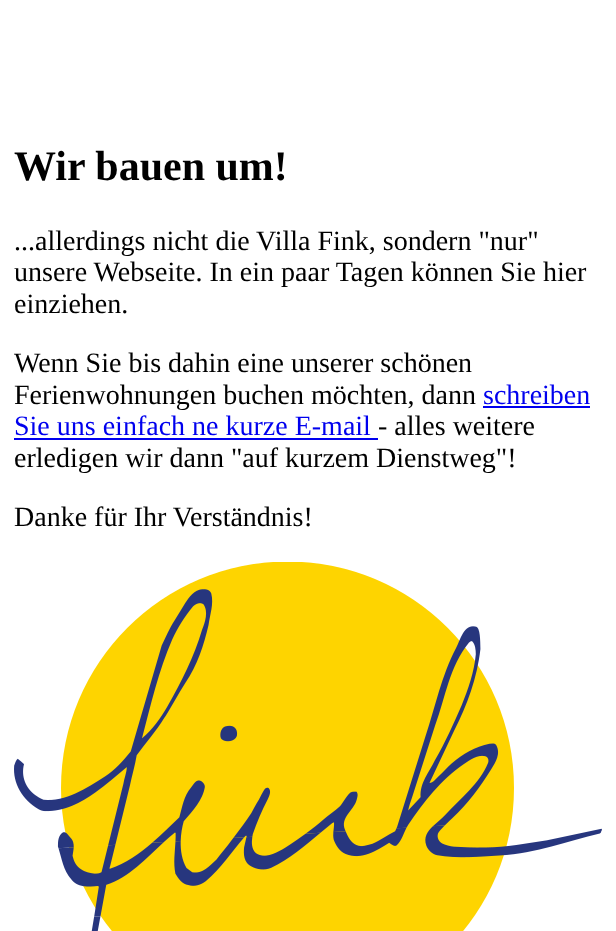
(async () => {
  const canvas = document.querySelector("canvas");
  canvas.width = 616;
  canvas.height = 931;
  const ctx = canvas.getContext("2d");
  ctx.miterLimit = 4;
  ctx.fontKerning = "normal";
  async function loadImage(src) {
    const img = new Image();
    img.src = src;
    await img.decode();
    return img;
  }

  ctx.fillStyle = "#ffffff";
  ctx.fillRect(0, 0, 616, 931);
  ctx.fillStyle = "#0000ee";
  ctx.fillRect(483, 406, 107, 2);
  ctx.fillRect(14, 438, 364, 2);
  ctx.drawImage(await loadImage("img/1.png"), 14, 562, 588, 369);
  ctx.font = "bold 42px Liberation Serif";
  ctx.fillStyle = "#000000";
  ctx.fillText("Wir bauen um!", 14, 180);
  ctx.font = "28px Liberation Serif";
  for (const [text, x, y] of [
    ["...allerdings nicht die Villa Fink, sondern \"nur\"", 14, 250],
    ["unsere Webseite. In ein paar Tagen können Sie hier", 14, 281],
    ["einziehen.", 14, 313],
    ["Wenn Sie bis dahin eine unserer schönen", 14, 372],
    ["Ferienwohnungen buchen möchten, dann", 14, 404],
  ]) {
    ctx.fillText(text, x, y);
  }
  ctx.fillStyle = "#0000ee";
  ctx.fillText("schreiben", 483, 404);
  ctx.fillText("Sie uns einfach ne kurze E-mail", 14, 435);
  ctx.fillStyle = "#000000";
  for (const [text, x, y] of [
    ["- alles weitere", 378, 435],
    ["erledigen wir dann \"auf kurzem Dienstweg\"!", 14, 467],
    ["Danke für Ihr Verständnis!", 14, 526],
  ]) {
    ctx.fillText(text, x, y);
  }
})();
